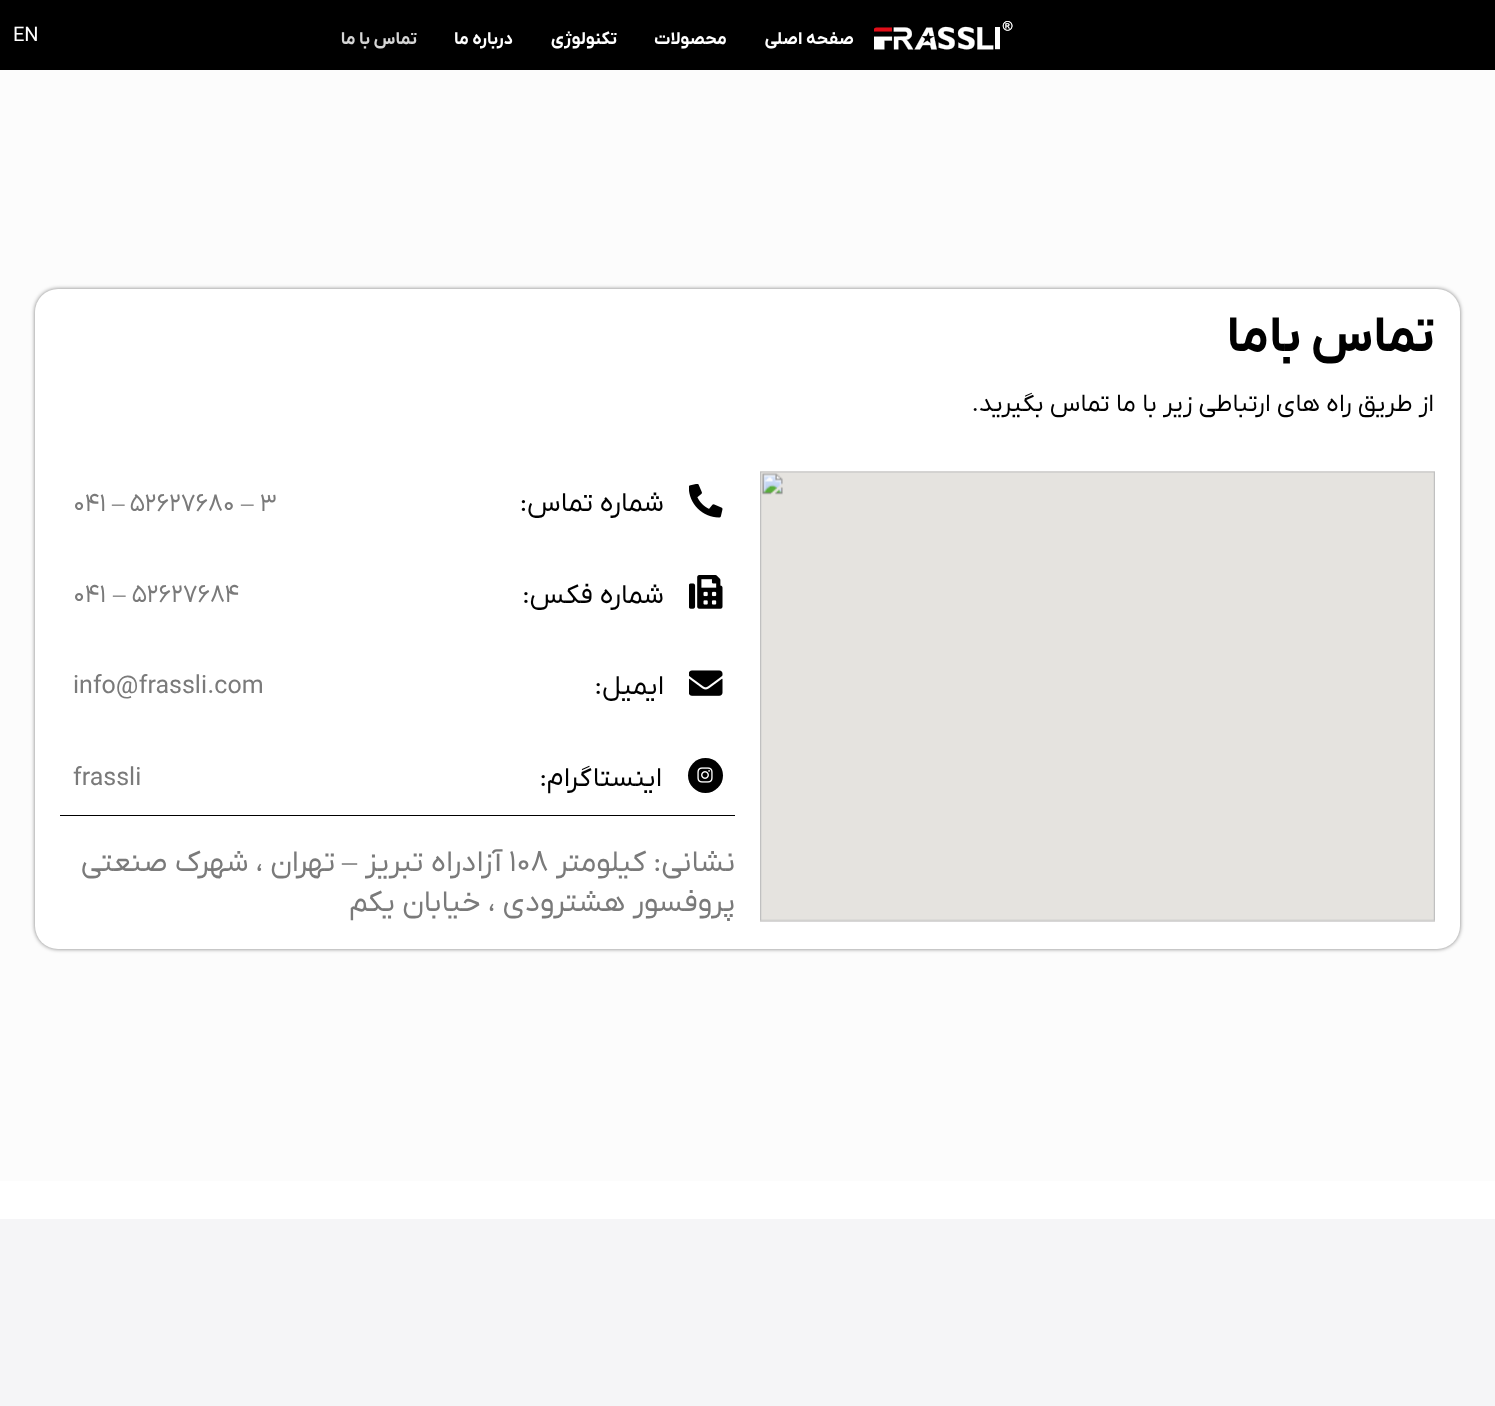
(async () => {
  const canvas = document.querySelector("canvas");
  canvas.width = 1495;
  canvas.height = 1406;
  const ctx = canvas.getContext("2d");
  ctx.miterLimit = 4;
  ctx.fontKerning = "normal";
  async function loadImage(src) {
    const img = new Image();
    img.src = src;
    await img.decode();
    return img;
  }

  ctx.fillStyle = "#ffffff";
  ctx.fillRect(0, 0, 1495, 1406);
  ctx.fillStyle = "#000000";
  ctx.fillRect(0, 0, 1495, 70);
  ctx.drawImage(await loadImage("img/1.png"), 874, 21, 139, 29);
  ctx.fillStyle = "#fcfcfc";
  ctx.fillRect(0, 70, 1495, 1111);
  ctx.fillStyle = "rgba(0, 0, 0, 0.5)";
  ctx.filter = "blur(2px)";
  ctx.beginPath();
  ctx.roundRect(35, 289, 1425, 660, 23);
  ctx.fill();
  ctx.filter = "none";
  ctx.fillStyle = "#ffffff";
  ctx.beginPath();
  ctx.roundRect(35, 289, 1425, 660, 23);
  ctx.fill();
  ctx.drawImage(await loadImage("img/2.png"), 760, 471, 675, 451);
  ctx.drawImage(await loadImage("img/3.png"), 689, 484, 34, 34);
  ctx.drawImage(await loadImage("img/4.png"), 689, 575, 34, 34);
  ctx.drawImage(await loadImage("img/5.png"), 689, 670, 34, 26);
  ctx.fillStyle = "#000000";
  ctx.beginPath();
  ctx.arc(705.5, 775.5, 17.5, 0, Math.PI * 2);
  ctx.fill();
  ctx.drawImage(await loadImage("img/6.png"), 697, 767, 16, 16);
  ctx.fillRect(60, 815, 675, 1);
  ctx.fillStyle = "#f5f5f7";
  ctx.fillRect(0, 1219, 1495, 187);
  ctx.direction = "rtl";
  ctx.font = "bold 17.5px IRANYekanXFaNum";
  ctx.fillStyle = "#ffffff";
  for (const [text, x, y] of [
    ["صفحه اصلی", 854, 44],
    ["محصولات", 727, 44],
    ["تکنولوژی", 617, 44],
    ["درباره ما", 513, 44],
  ]) {
    ctx.fillText(text, x, y);
  }
  ctx.fillStyle = "#d5d5d5";
  ctx.fillText("تماس با ما", 417, 44);
  ctx.direction = "ltr";
  ctx.font = "20px IRANYekanXFaNum";
  ctx.fillStyle = "#ffffff";
  ctx.fillText("EN", 13, 41);
  ctx.direction = "rtl";
  ctx.font = "bold 50px IRANYekanXFaNum";
  ctx.fillStyle = "#000000";
  ctx.fillText("تماس باما", 1435, 351);
  ctx.font = "25px IRANYekanXFaNum";
  ctx.fillText("از طریق راه های ارتباطی زیر با ما تماس بگیرید.", 1434, 411);
  ctx.font = "27.5px IRANYekanXFaNum";
  ctx.fillText("شماره تماس:", 664, 511);
  ctx.direction = "ltr";
  ctx.font = "25px IRANYekanXFaNum";
  ctx.fillStyle = "#7a7a7a";
  ctx.fillText("3", 260, 511);
  ctx.font = "25px Liberation Serif";
  ctx.fillText("–", 241, 511);
  ctx.font = "25px IRANYekanXFaNum";
  ctx.fillText("52627680", 130, 511);
  ctx.font = "25px Liberation Serif";
  ctx.fillText("–", 112, 511);
  ctx.font = "25px IRANYekanXFaNum";
  ctx.fillText("041", 73, 511);
  ctx.direction = "rtl";
  ctx.font = "27.5px IRANYekanXFaNum";
  ctx.fillStyle = "#000000";
  ctx.fillText("شماره فکس:", 664, 603);
  ctx.direction = "ltr";
  ctx.font = "25px IRANYekanXFaNum";
  ctx.fillStyle = "#7a7a7a";
  ctx.fillText("52627684", 132, 602);
  ctx.font = "25px Liberation Serif";
  ctx.fillText("–", 113, 602);
  ctx.font = "25px IRANYekanXFaNum";
  ctx.fillText("041", 73, 602);
  ctx.direction = "rtl";
  ctx.font = "27.5px IRANYekanXFaNum";
  ctx.fillStyle = "#000000";
  ctx.fillText("ایمیل:", 664, 694);
  ctx.direction = "ltr";
  ctx.font = "25px IRANYekanXFaNum";
  ctx.fillStyle = "#7a7a7a";
  ctx.fillText("info@frassli.com", 73, 693);
  ctx.direction = "rtl";
  ctx.font = "27.5px IRANYekanXFaNum";
  ctx.fillStyle = "#000000";
  ctx.fillText("اینستاگرام:", 662, 786);
  ctx.direction = "ltr";
  ctx.font = "25px IRANYekanXFaNum";
  ctx.fillStyle = "#7a7a7a";
  ctx.fillText("frassli", 73, 785);
  ctx.direction = "rtl";
  ctx.font = "30px IRANYekanXFaNum";
  ctx.fillText("نشانی: کیلومتر", 735, 871);
  ctx.direction = "ltr";
  ctx.fillText("108", 509, 871);
  ctx.direction = "rtl";
  ctx.fillText("آزادراه تبریز", 502, 871);
  ctx.font = "30px Liberation Serif";
  ctx.fillText("–", 357, 871);
  ctx.font = "30px IRANYekanXFaNum";
  ctx.fillText("تهران ، شهرک صنعتی", 335, 871);
  ctx.fillText("پروفسور هشترودی ، خیابان یکم", 735, 911);
})();
